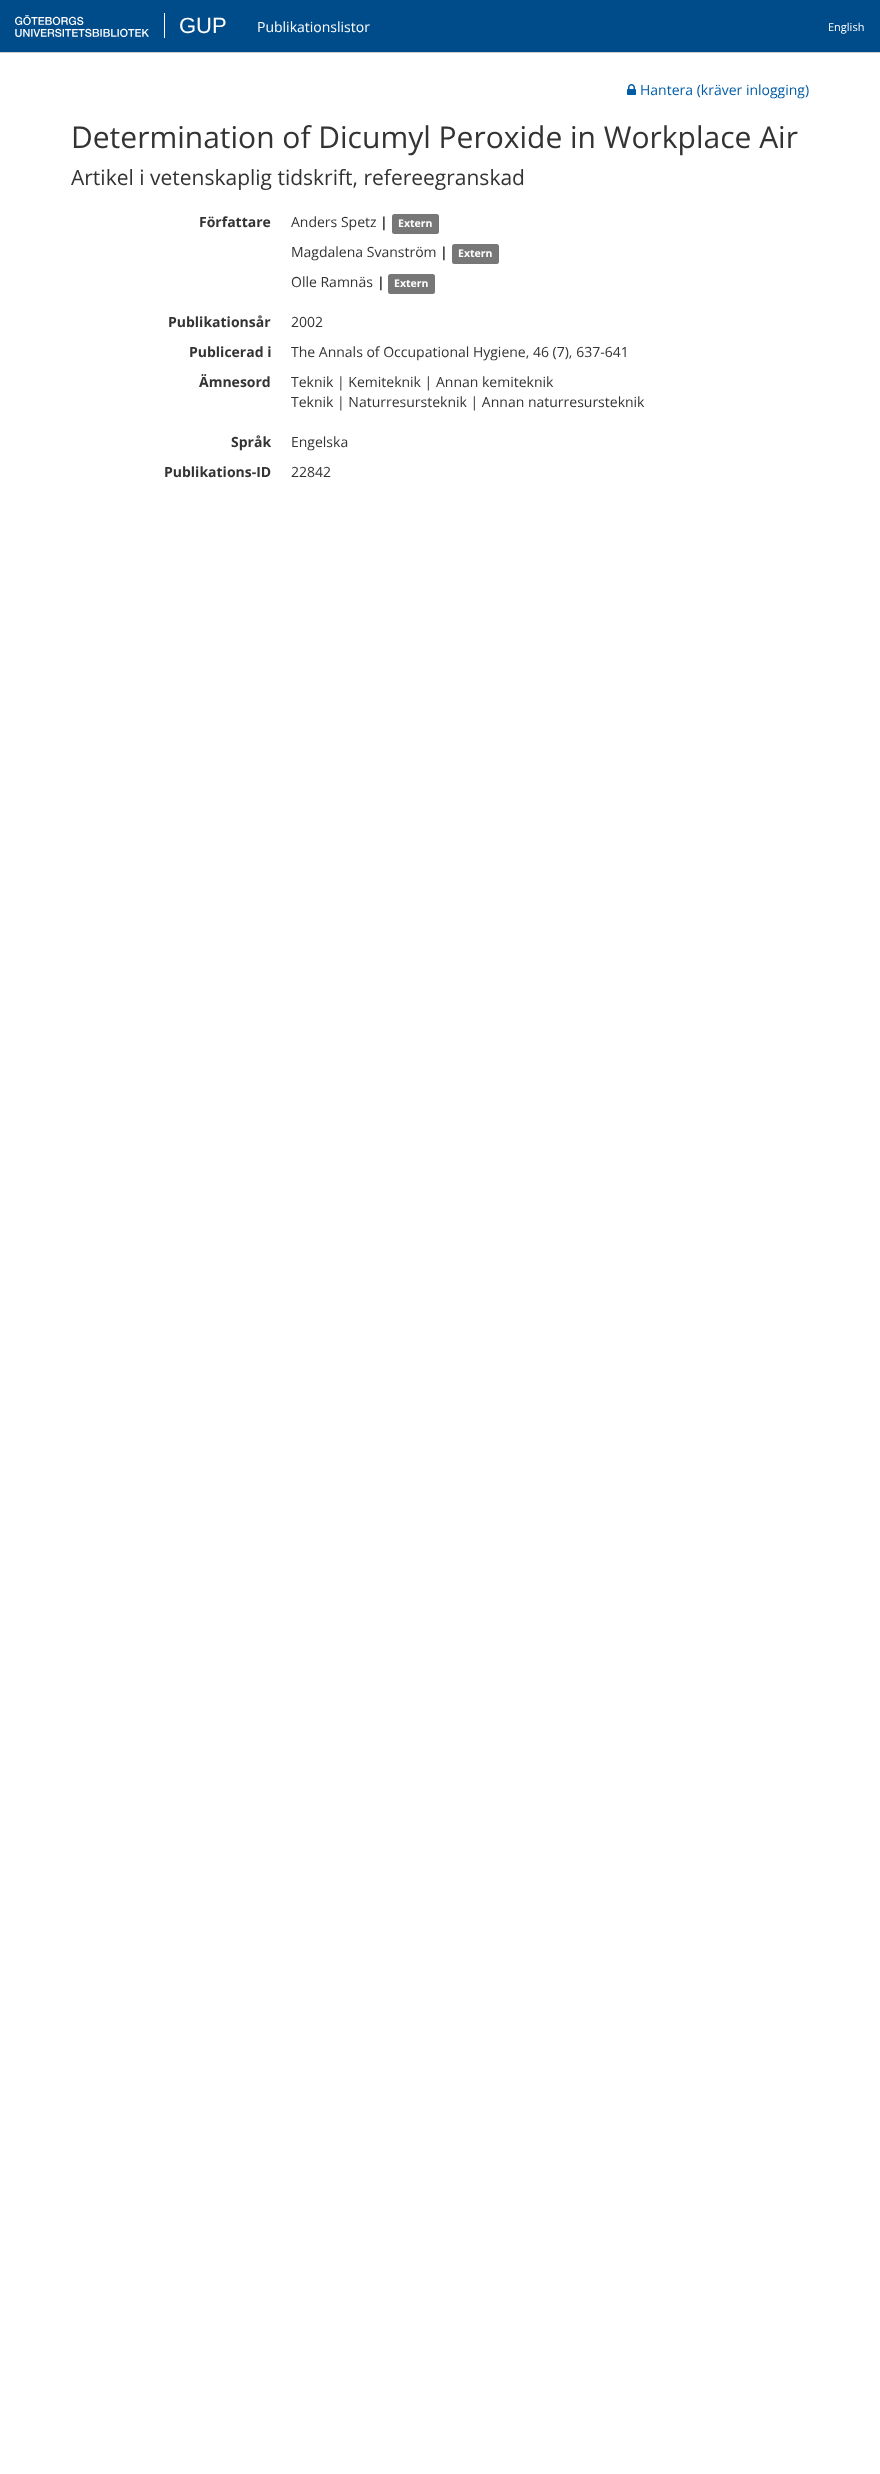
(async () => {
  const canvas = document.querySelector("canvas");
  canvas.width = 880;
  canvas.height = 2474;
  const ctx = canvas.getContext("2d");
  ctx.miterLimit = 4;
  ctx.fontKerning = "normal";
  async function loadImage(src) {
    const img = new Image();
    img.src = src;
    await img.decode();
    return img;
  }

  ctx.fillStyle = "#ffffff";
  ctx.fillRect(0, 0, 880, 2474);
  ctx.fillStyle = "#004b89";
  ctx.fillRect(0, 0, 880, 52);
  ctx.fillStyle = "#cccccc";
  ctx.fillRect(0, 52, 880, 1);
  ctx.drawImage(await loadImage("img/1.png"), 15, 15, 134, 22);
  ctx.fillStyle = "#ffffff";
  ctx.fillRect(164, 13, 1, 25);
  ctx.drawImage(await loadImage("img/2.png"), 627, 84, 9, 11);
  ctx.fillStyle = "#777777";
  ctx.beginPath();
  ctx.roundRect(392, 214, 47, 20, 2.5);
  ctx.fill();
  ctx.beginPath();
  ctx.roundRect(452, 244, 47, 20, 2.5);
  ctx.fill();
  ctx.beginPath();
  ctx.roundRect(388, 274, 47, 20, 2.5);
  ctx.fill();
  ctx.font = "22px Liberation Sans";
  ctx.fillStyle = "#ffffff";
  ctx.fillText("GUP", 179, 33);
  ctx.font = "14px Open Sans";
  ctx.fillText("Publikationslistor", 257, 32);
  ctx.font = "11px Open Sans";
  ctx.fillText("English", 828, 31);
  ctx.font = "14px Open Sans";
  ctx.fillStyle = "#025da6";
  ctx.fillText("Hantera (kräver inlogging)", 640, 95);
  ctx.font = "30px Open Sans";
  ctx.fillStyle = "#333333";
  ctx.fillText("Determination of Dicumyl Peroxide in Workplace Air", 71, 148);
  ctx.font = "21px Open Sans";
  ctx.fillText("Artikel i vetenskaplig tidskrift, refereegranskad", 71, 185);
  ctx.font = "bold 14px Open Sans";
  ctx.fillText("Författare", 199, 227);
  ctx.font = "14px Open Sans";
  ctx.fillText("Anders Spetz", 291, 227);
  ctx.font = "bold 14px Open Sans";
  ctx.fillText("|", 380, 227);
  ctx.font = "bold 10.5px Open Sans";
  ctx.fillStyle = "#ffffff";
  ctx.fillText("Extern", 398, 227);
  ctx.font = "14px Open Sans";
  ctx.fillStyle = "#333333";
  ctx.fillText("Magdalena Svanström", 291, 257);
  ctx.font = "bold 14px Open Sans";
  ctx.fillText("|", 440, 257);
  ctx.font = "bold 10.5px Open Sans";
  ctx.fillStyle = "#ffffff";
  ctx.fillText("Extern", 458, 257);
  ctx.font = "14px Open Sans";
  ctx.fillStyle = "#333333";
  ctx.fillText("Olle Ramnäs", 291, 287);
  ctx.font = "bold 14px Open Sans";
  ctx.fillText("|", 377, 287);
  ctx.font = "bold 10.5px Open Sans";
  ctx.fillStyle = "#ffffff";
  ctx.fillText("Extern", 394, 287);
  ctx.font = "bold 14px Open Sans";
  ctx.fillStyle = "#333333";
  ctx.fillText("Publikationsår", 168, 327);
  ctx.font = "14px Open Sans";
  ctx.fillText("2002", 291, 327);
  ctx.font = "bold 14px Open Sans";
  ctx.fillText("Publicerad i", 189, 357);
  ctx.font = "14px Open Sans";
  ctx.fillText("The Annals of Occupational Hygiene, 46 (7), 637-641", 291, 357);
  ctx.font = "bold 14px Open Sans";
  ctx.fillText("Ämnesord", 199, 387);
  ctx.font = "14px Open Sans";
  ctx.fillText("Teknik | Kemiteknik | Annan kemiteknik", 291, 387);
  ctx.fillText("Teknik | Naturresursteknik | Annan naturresursteknik", 291, 407);
  ctx.font = "bold 14px Open Sans";
  ctx.fillText("Språk", 231, 447);
  ctx.font = "14px Open Sans";
  ctx.fillText("Engelska", 291, 447);
  ctx.font = "bold 14px Open Sans";
  ctx.fillText("Publikations-ID", 164, 477);
  ctx.font = "14px Open Sans";
  ctx.fillText("22842", 291, 477);
})();
